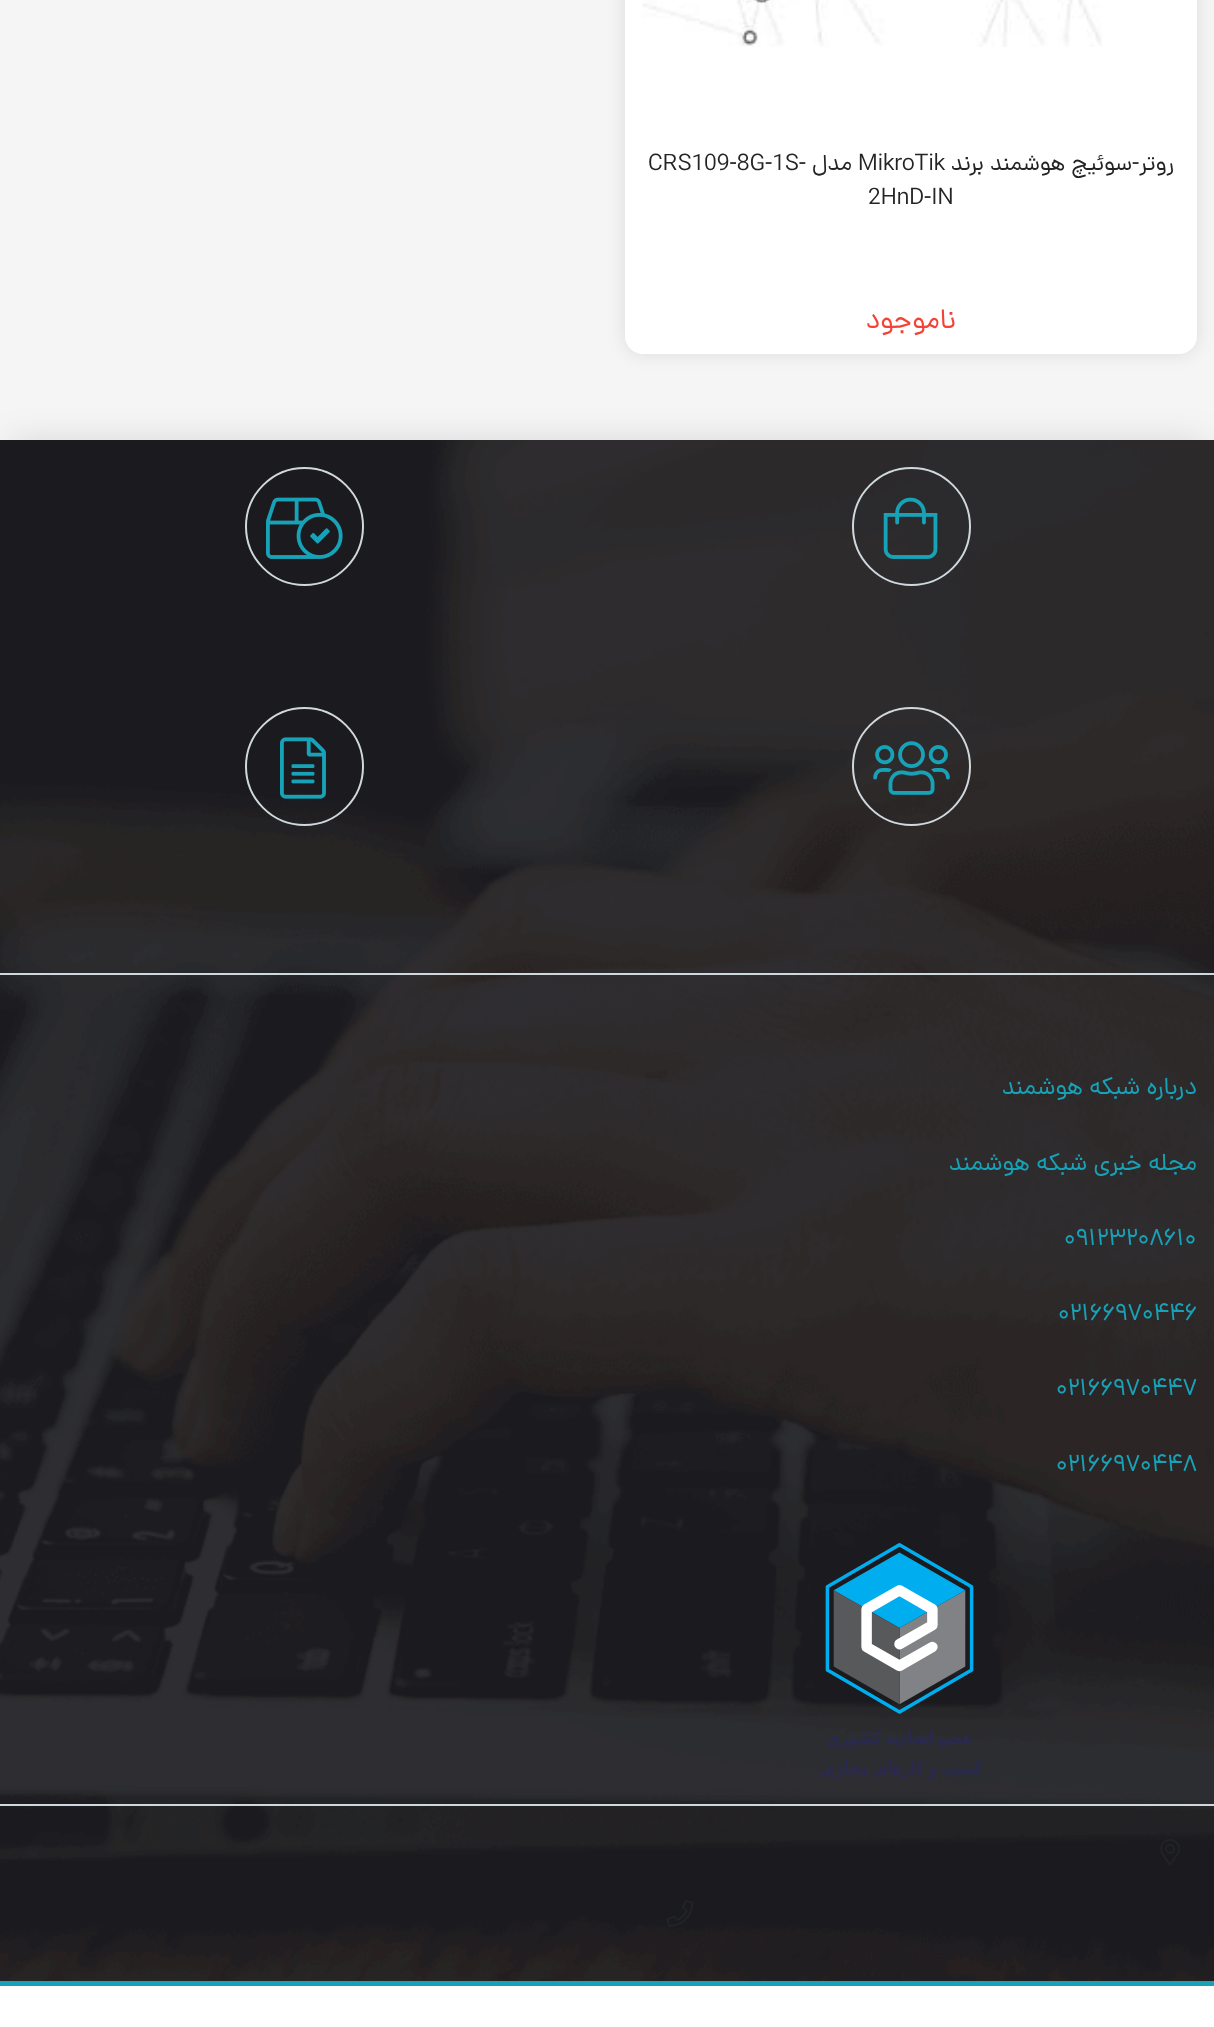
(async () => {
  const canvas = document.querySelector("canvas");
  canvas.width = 1214;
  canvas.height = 2027;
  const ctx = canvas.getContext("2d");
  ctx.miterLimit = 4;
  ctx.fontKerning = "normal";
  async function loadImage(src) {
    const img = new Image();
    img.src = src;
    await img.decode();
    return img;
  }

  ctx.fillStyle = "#f5f5f5";
  ctx.fillRect(0, 0, 1214, 2027);
  ctx.fillStyle = "rgba(0, 0, 0, 0.1)";
  ctx.filter = "blur(9px)";
  ctx.beginPath();
  ctx.roundRect(625, -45, 572, 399, 18);
  ctx.fill();
  ctx.filter = "none";
  ctx.fillStyle = "#ffffff";
  ctx.beginPath();
  ctx.roundRect(625, -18, 572, 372, 18);
  ctx.fill();
  ctx.drawImage(await loadImage("img/1.png"), 642, 0, 460, 47);
  ctx.fillStyle = "rgba(0, 0, 0, 0.12)";
  ctx.filter = "blur(17.5px)";
  ctx.beginPath();
  ctx.rect(11, 441, 1193, 1519);
  ctx.fill();
  ctx.filter = "none";
  ctx.drawImage(await loadImage("img/2.png"), 0, 440, 1214, 1541);
  ctx.fillStyle = "#cfd8dc";
  ctx.fillRect(0, 973, 1214, 2);
  ctx.beginPath();
  ctx.arc(304.5, 526.5, 58.5, 0, Math.PI * 2);
  ctx.strokeStyle = "#cfd8dc";
  ctx.lineWidth = 2;
  ctx.stroke();
  ctx.drawImage(await loadImage("img/3.png"), 266, 497, 77, 62);
  ctx.beginPath();
  ctx.arc(911.5, 526.5, 58.5, 0, Math.PI * 2);
  ctx.stroke();
  ctx.drawImage(await loadImage("img/4.png"), 883, 497, 55, 62);
  ctx.beginPath();
  ctx.arc(304.5, 766.5, 58.5, 0, Math.PI * 2);
  ctx.stroke();
  ctx.drawImage(await loadImage("img/5.png"), 280, 737, 46, 62);
  ctx.beginPath();
  ctx.arc(911.5, 766.5, 58.5, 0, Math.PI * 2);
  ctx.stroke();
  ctx.drawImage(await loadImage("img/6.png"), 873, 741, 77, 54);
  ctx.fillRect(0, 1804, 1214, 2);
  ctx.drawImage(await loadImage("img/7.png"), 821, 1543, 162, 236);
  ctx.drawImage(await loadImage("img/8.png"), 1160, 1839, 20, 26);
  ctx.drawImage(await loadImage("img/9.png"), 667, 1900, 26, 27);
  ctx.fillStyle = "#ffffff";
  ctx.fillRect(0, 1986, 1214, 41);
  ctx.fillStyle = "#17a2b8";
  ctx.fillRect(0, 1981, 1214, 5);
  ctx.font = "22.75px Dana";
  ctx.fillStyle = "#242424";
  ctx.fillText("CRS109-8G-1S-", 648, 170);
  ctx.direction = "rtl";
  ctx.fillText("مدل", 852, 170);
  ctx.direction = "ltr";
  ctx.fillText("MikroTik", 858, 170);
  ctx.direction = "rtl";
  ctx.fillText("روتر-سوئیچ هوشمند برند", 1174, 170);
  ctx.direction = "ltr";
  ctx.fillText("2HnD-IN", 868, 204);
  ctx.direction = "rtl";
  ctx.font = "28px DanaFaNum";
  ctx.fillStyle = "#f44336";
  ctx.fillText("ناموجود", 956, 328);
  ctx.font = "24.5px Dana";
  ctx.fillStyle = "#17a2b8";
  ctx.fillText("درباره شبکه هوشمند", 1197, 1094);
  ctx.fillText("مجله خبری شبکه هوشمند", 1197, 1170);
  ctx.direction = "ltr";
  for (const [text, x, y] of [
    ["۰۹۱۲۳۲۰۸۶۱۰", 1064, 1245],
    ["۰۲۱۶۶۹۷۰۴۴۶", 1058, 1320],
    ["۰۲۱۶۶۹۷۰۴۴۷", 1056, 1395],
    ["۰۲۱۶۶۹۷۰۴۴۸", 1056, 1471],
  ]) {
    ctx.fillText(text, x, y);
  }
})();
